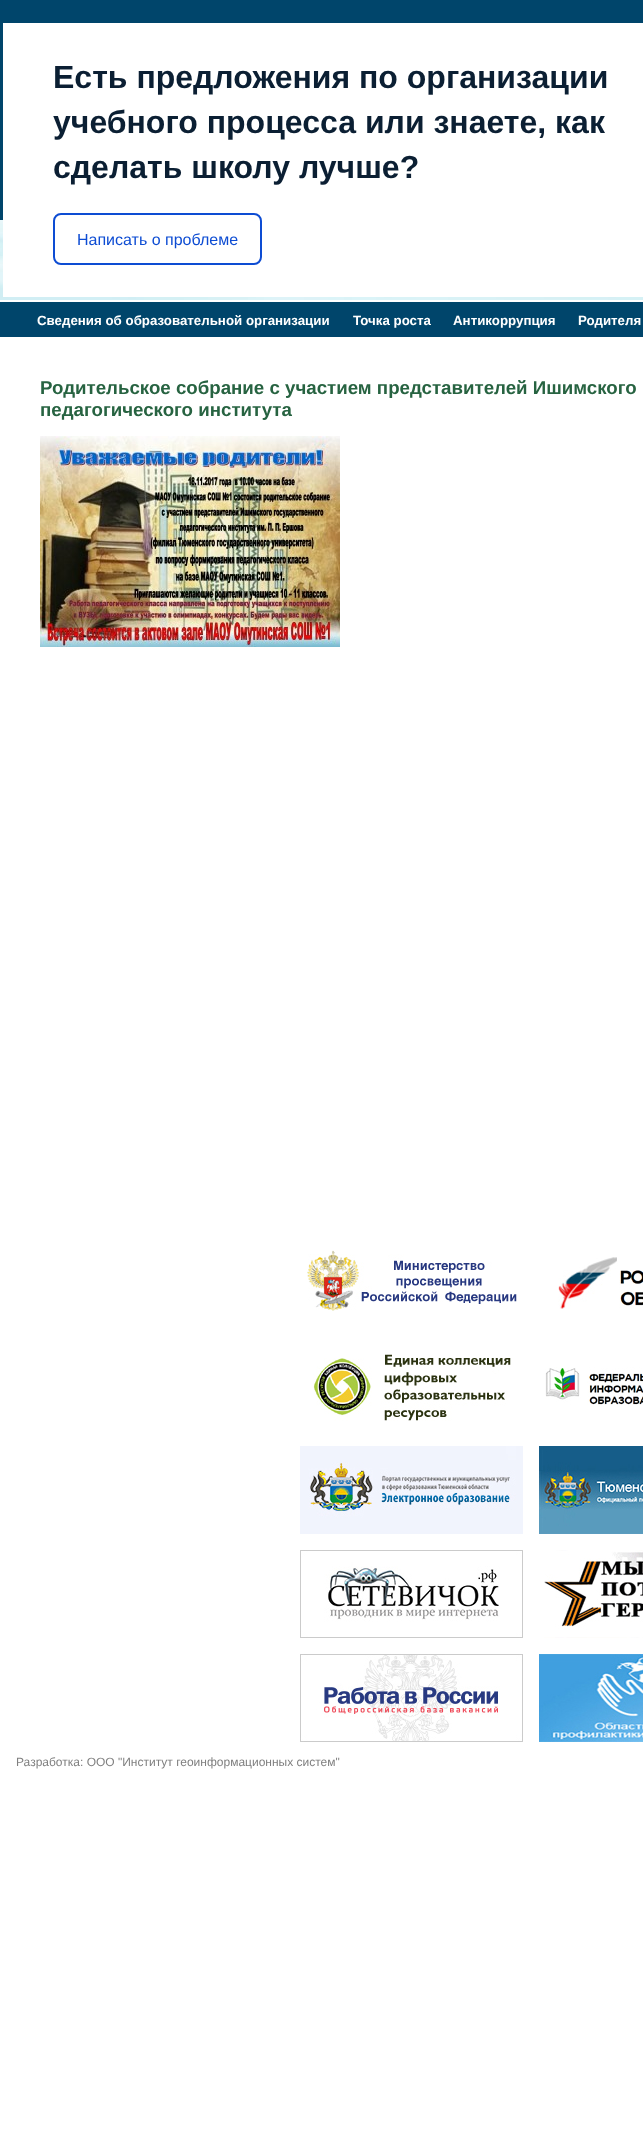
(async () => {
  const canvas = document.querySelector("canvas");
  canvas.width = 643;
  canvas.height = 2151;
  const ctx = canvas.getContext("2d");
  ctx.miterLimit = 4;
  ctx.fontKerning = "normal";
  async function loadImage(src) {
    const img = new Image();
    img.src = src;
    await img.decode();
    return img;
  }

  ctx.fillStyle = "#ffffff";
  ctx.fillRect(0, 0, 643, 2151);
  ctx.drawImage(await loadImage("img/1.png"), 0, 220, 643, 80);
  ctx.fillStyle = "#00456b";
  ctx.fillRect(0, 0, 643, 220);
  ctx.fillStyle = "#ffffff";
  ctx.fillRect(3, 23, 640, 274);
  ctx.beginPath();
  ctx.roundRect(54, 214, 207, 50, 7);
  ctx.strokeStyle = "#0d4cd3";
  ctx.lineWidth = 2;
  ctx.stroke();
  ctx.fillStyle = "#00456b";
  ctx.fillRect(0, 302, 643, 35);
  ctx.drawImage(await loadImage("img/2.png"), 40, 436, 300, 211);
  ctx.drawImage(await loadImage("img/3.png"), 307, 1250, 210, 61);
  ctx.drawImage(await loadImage("img/4.png"), 558, 1257, 85, 52);
  ctx.drawImage(await loadImage("img/5.png"), 313, 1354, 198, 67);
  ctx.drawImage(await loadImage("img/6.png"), 545, 1367, 98, 38);
  ctx.drawImage(await loadImage("img/7.png"), 300, 1446, 223, 88);
  ctx.drawImage(await loadImage("img/8.png"), 539, 1446, 104, 88);
  ctx.drawImage(await loadImage("img/9.png"), 300, 1550, 223, 88);
  ctx.drawImage(await loadImage("img/10.png"), 544, 1550, 99, 88);
  ctx.drawImage(await loadImage("img/11.png"), 300, 1654, 223, 88);
  ctx.drawImage(await loadImage("img/12.png"), 539, 1654, 104, 88);
  ctx.font = "bold 32px Liberation Sans";
  ctx.fillStyle = "#0b1f33";
  for (const [text, x, y] of [
    ["Есть предложения по организации", 53, 88],
    ["учебного процесса или знаете, как", 53, 133],
    ["сделать школу лучше?", 53, 178],
  ]) {
    ctx.fillText(text, x, y);
  }
  ctx.font = "16px Liberation Sans";
  ctx.fillStyle = "#0d4cd3";
  ctx.fillText("Написать о проблеме", 77, 245);
  ctx.font = "bold 13.3px Liberation Sans";
  ctx.fillStyle = "#ffffff";
  for (const [text, x, y] of [
    ["Сведения об образовательной организации", 37, 325],
    ["Точка роста", 353, 325],
    ["Антикоррупция", 453, 325],
    ["Родителя", 578, 325],
  ]) {
    ctx.fillText(text, x, y);
  }
  ctx.font = "bold 18.7px Liberation Sans";
  ctx.fillStyle = "#276341";
  ctx.fillText("Родительское собрание с участием представителей Ишимского", 40, 394);
  ctx.fillText("педагогического института", 40, 416);
  ctx.font = "12px Liberation Sans";
  ctx.fillStyle = "#808080";
  ctx.fillText("Разработка: ООО \"Институт геоинформационных систем\"", 16, 1766);
})();
